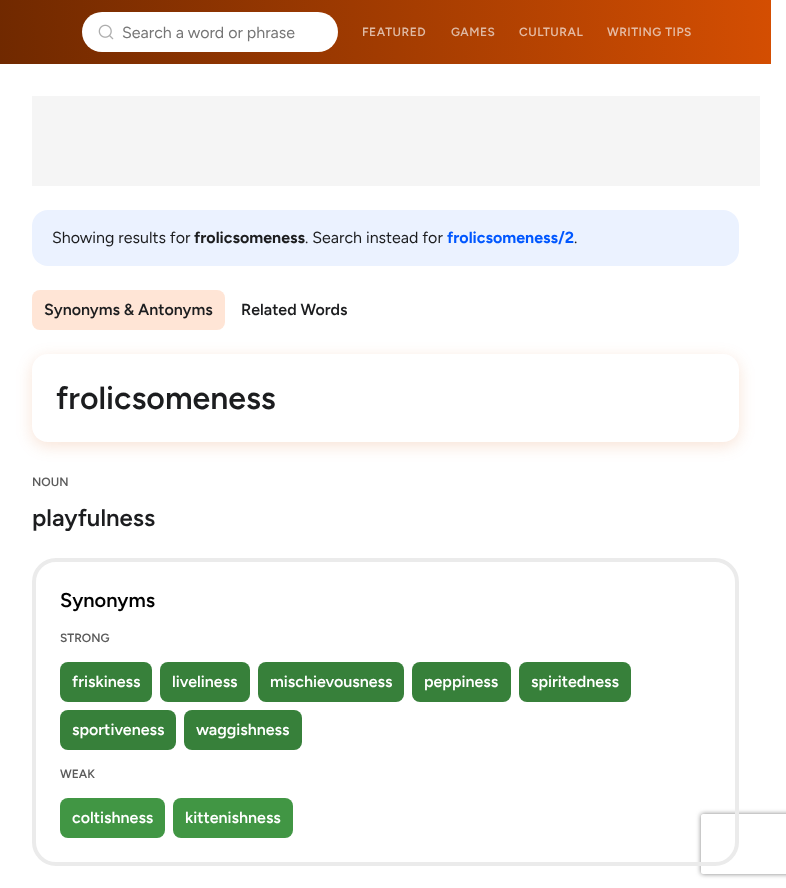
(async () => {
  const canvas = document.querySelector("canvas");
  canvas.width = 786;
  canvas.height = 888;
  const ctx = canvas.getContext("2d");
  ctx.miterLimit = 4;
  ctx.fontKerning = "normal";
  async function loadImage(src) {
    const img = new Image();
    img.src = src;
    await img.decode();
    return img;
  }
  let gradient, path;

  ctx.fillStyle = "#ffffff";
  ctx.fillRect(0, 0, 786, 888);
  gradient = ctx.createLinearGradient(-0.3, 60, 771, 3.7);
  gradient.addColorStop(0, "#702900");
  gradient.addColorStop(1, "#d44e02");
  ctx.fillStyle = gradient;
  ctx.fillRect(0, 0, 771, 64);
  ctx.fillStyle = "#ffffff";
  ctx.beginPath();
  ctx.roundRect(82, 12, 256, 40, 20);
  ctx.fill();
  ctx.drawImage(await loadImage("img/1.png"), 98, 24, 16, 16);
  ctx.fillStyle = "#f5f5f5";
  ctx.fillRect(32, 96, 728, 90);
  ctx.fillStyle = "#ebf2ff";
  ctx.beginPath();
  ctx.roundRect(32, 210, 707, 56, 16);
  ctx.fill();
  ctx.fillStyle = "#ffe5d6";
  ctx.beginPath();
  ctx.roundRect(32, 290, 193, 40, 8);
  ctx.fill();
  ctx.save();
  path = new Path2D("M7 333H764V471H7ZM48 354H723C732 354 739 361 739 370V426C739 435 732 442 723 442H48C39 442 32 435 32 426V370C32 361 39 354 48 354Z");
  ctx.clip(path, "evenodd");
  ctx.fillStyle = "rgba(212, 78, 2, 0.16)";
  ctx.filter = "blur(8px)";
  ctx.beginPath();
  ctx.roundRect(32, 358, 707, 88, 16);
  ctx.fill();
  ctx.filter = "none";
  ctx.restore();
  ctx.save();
  path = new Path2D("M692 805H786V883H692ZM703 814H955C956 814 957 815 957 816V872C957 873 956 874 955 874H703C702 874 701 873 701 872V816C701 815 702 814 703 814Z");
  ctx.clip(path, "evenodd");
  ctx.fillStyle = "#808080";
  ctx.filter = "blur(2.5px)";
  ctx.beginPath();
  ctx.roundRect(701, 814, 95, 60, 2);
  ctx.fill();
  ctx.filter = "none";
  ctx.restore();
  ctx.beginPath();
  ctx.roundRect(34, 560, 703, 304, 22);
  ctx.strokeStyle = "#ebebeb";
  ctx.lineWidth = 4;
  ctx.stroke();
  ctx.fillStyle = "#37803a";
  ctx.beginPath();
  ctx.roundRect(60, 662, 92, 40, 8);
  ctx.fill();
  ctx.beginPath();
  ctx.roundRect(160, 662, 90, 40, 8);
  ctx.fill();
  ctx.beginPath();
  ctx.roundRect(258, 662, 146, 40, 8);
  ctx.fill();
  ctx.beginPath();
  ctx.roundRect(412, 662, 99, 40, 8);
  ctx.fill();
  ctx.beginPath();
  ctx.roundRect(519, 662, 112, 40, 8);
  ctx.fill();
  ctx.beginPath();
  ctx.roundRect(60, 710, 116, 40, 8);
  ctx.fill();
  ctx.beginPath();
  ctx.roundRect(184, 710, 118, 40, 8);
  ctx.fill();
  ctx.fillStyle = "#419644";
  ctx.beginPath();
  ctx.roundRect(60, 798, 105, 40, 8);
  ctx.fill();
  ctx.beginPath();
  ctx.roundRect(173, 798, 120, 40, 8);
  ctx.fill();
  ctx.font = "16px Figtree";
  ctx.fillStyle = "#757575";
  ctx.fillText("Search a word or phrase", 122, 38);
  ctx.letterSpacing = "0.5px";
  ctx.font = "600 12px Figtree";
  ctx.fillStyle = "#deb9a4";
  ctx.fillText("FEATURED", 362, 36);
  ctx.fillText("GAMES", 451, 36);
  ctx.fillStyle = "#e5bba4";
  ctx.fillText("CULTURAL", 519, 36);
  ctx.fillText("WRITING TIPS", 607, 36);
  ctx.letterSpacing = "0px";
  ctx.font = "16px Figtree";
  ctx.fillStyle = "#1c1d1f";
  ctx.fillText("Showing results for", 52, 243);
  ctx.font = "bold 16px Figtree";
  ctx.fillText("frolicsomeness", 194, 243);
  ctx.font = "16px Figtree";
  ctx.fillText(". Search instead for", 305, 243);
  ctx.font = "bold 16px Figtree";
  ctx.fillStyle = "#0057ff";
  ctx.fillText("frolicsomeness/2", 447, 243);
  ctx.font = "16px Figtree";
  ctx.fillStyle = "#1c1d1f";
  ctx.fillText(".", 574, 243);
  ctx.font = "600 16px Figtree";
  ctx.fillText("Synonyms & Antonyms", 44, 315);
  ctx.fillText("Related Words", 241, 315);
  ctx.font = "600 32px Figtree";
  ctx.fillText("frolicsomeness", 56, 409);
  ctx.font = "600 12px Figtree";
  ctx.fillStyle = "#5c5c5c";
  ctx.fillText("NOUN", 32, 486);
  ctx.font = "600 24px Figtree";
  ctx.fillStyle = "#1c1d1f";
  ctx.fillText("playfulness", 32, 526);
  ctx.font = "600 20px Figtree";
  ctx.fillStyle = "#000000";
  ctx.fillText("Synonyms", 60, 607);
  ctx.font = "600 12px Figtree";
  ctx.fillStyle = "#5c5c5c";
  ctx.fillText("STRONG", 60, 642);
  ctx.font = "600 16px Figtree";
  ctx.fillStyle = "#ffffff";
  for (const [text, x, y] of [
    ["friskiness", 72, 687],
    ["liveliness", 172, 687],
    ["mischievousness", 270, 687],
    ["peppiness", 424, 687],
    ["spiritedness", 531, 687],
    ["sportiveness", 72, 735],
    ["waggishness", 196, 735],
  ]) {
    ctx.fillText(text, x, y);
  }
  ctx.font = "600 12px Figtree";
  ctx.fillStyle = "#5c5c5c";
  ctx.fillText("WEAK", 60, 778);
  ctx.font = "600 16px Figtree";
  ctx.fillStyle = "#ffffff";
  ctx.fillText("coltishness", 72, 823);
  ctx.fillText("kittenishness", 185, 823);
})();
